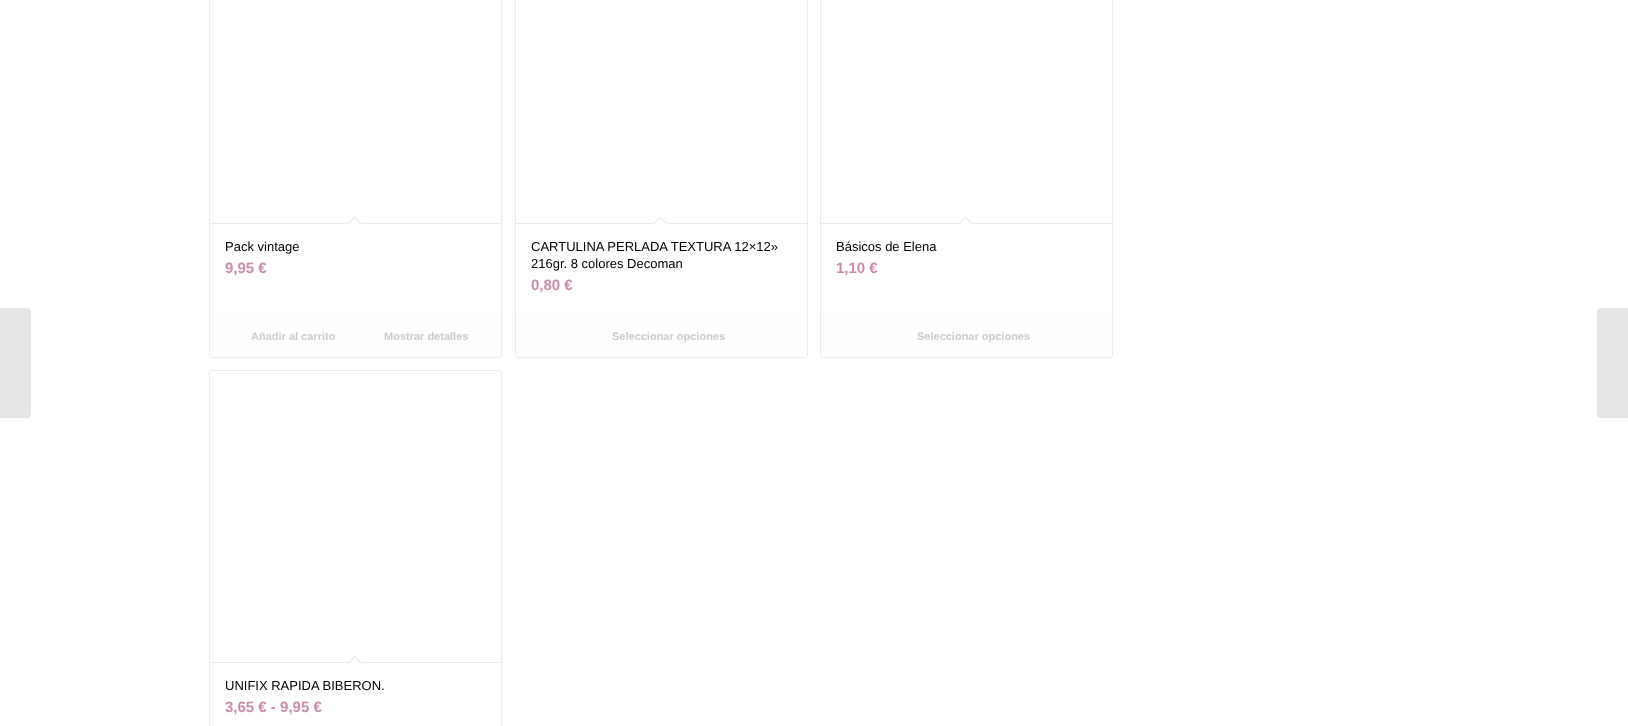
(async () => {
  const canvas = document.querySelector("canvas");
  canvas.width = 1628;
  canvas.height = 726;
  const ctx = canvas.getContext("2d");
  ctx.miterLimit = 4;
  ctx.fontKerning = "normal";
  let path;

  ctx.fillStyle = "#ffffff";
  ctx.fillRect(0, 0, 1628, 726);
  ctx.fillStyle = "#e6e6e6";
  ctx.beginPath();
  ctx.roundRect(0, 308, 31, 110, [0, 4, 4, 0]);
  ctx.fill();
  ctx.beginPath();
  ctx.roundRect(209.5, -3.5, 292, 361, 2.5);
  ctx.strokeStyle = "#ebebeb";
  ctx.stroke();
  ctx.fillStyle = "#ebebeb";
  ctx.fillRect(210, 223, 291, 1);
  ctx.fillStyle = "#ffffff";
  path = new Path2D("M354.5 216.5L362 223.5L354.5 231L347.5 223.5Z");
  ctx.fill(path);
  ctx.fillStyle = "#ebebeb";
  path = new Path2D("M354.5 216.5L362 223.5L361 224.5L354 217.5Z");
  ctx.fill(path);
  path = new Path2D("M354.5 216.5L355.5 217.5L348.5 224.5L347.5 223.5Z");
  ctx.fill(path);
  ctx.fillStyle = "#fefefe";
  ctx.beginPath();
  ctx.roundRect(210, 314, 291, 43, [0, 0, 2, 2]);
  ctx.fill();
  ctx.fillStyle = "#fbfbfb";
  ctx.fillRect(210, 314, 291, 1);
  ctx.fillRect(352, 330, 1, 14);
  ctx.beginPath();
  ctx.roundRect(515.5, -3.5, 292, 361, 2.5);
  ctx.stroke();
  ctx.fillStyle = "#ebebeb";
  ctx.fillRect(516, 223, 291, 1);
  ctx.fillStyle = "#ffffff";
  path = new Path2D("M660 216.5L667.5 223.5L660 231L653 223.5Z");
  ctx.fill(path);
  ctx.fillStyle = "#ebebeb";
  path = new Path2D("M660 216.5L667.5 223.5L666.5 224.5L659.5 217.5Z");
  ctx.fill(path);
  path = new Path2D("M660 216.5L661 217.5L654 224.5L653 223.5Z");
  ctx.fill(path);
  ctx.fillStyle = "#fefefe";
  ctx.beginPath();
  ctx.roundRect(516, 314, 291, 43, [0, 0, 2, 2]);
  ctx.fill();
  ctx.fillStyle = "#fbfbfb";
  ctx.fillRect(516, 314, 291, 1);
  ctx.beginPath();
  ctx.roundRect(820.5, -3.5, 292, 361, 2.5);
  ctx.stroke();
  ctx.fillStyle = "#ebebeb";
  ctx.fillRect(821, 223, 291, 1);
  ctx.fillStyle = "#ffffff";
  path = new Path2D("M965.5 216.5L973 223.5L965.5 231L958.5 223.5Z");
  ctx.fill(path);
  ctx.fillStyle = "#ebebeb";
  path = new Path2D("M965.5 216.5L973 223.5L972 224.5L965 217.5Z");
  ctx.fill(path);
  path = new Path2D("M965.5 216.5L966.5 217.5L959.5 224.5L958.5 223.5Z");
  ctx.fill(path);
  ctx.fillStyle = "#fefefe";
  ctx.beginPath();
  ctx.roundRect(821, 314, 291, 43, [0, 0, 2, 2]);
  ctx.fill();
  ctx.fillStyle = "#fbfbfb";
  ctx.fillRect(821, 314, 291, 1);
  ctx.beginPath();
  ctx.roundRect(209.5, 370.5, 292, 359, 2.5);
  ctx.stroke();
  ctx.fillStyle = "#ebebeb";
  ctx.fillRect(210, 662, 291, 1);
  ctx.fillStyle = "#ffffff";
  path = new Path2D("M354.5 656L362 663L354.5 670.5L347.5 663Z");
  ctx.fill(path);
  ctx.fillStyle = "#ebebeb";
  path = new Path2D("M354.5 656L362 663L361 664L354 657Z");
  ctx.fill(path);
  path = new Path2D("M354.5 656L355.5 657L348.5 664L347.5 663Z");
  ctx.fill(path);
  ctx.fillStyle = "#e6e6e6";
  ctx.beginPath();
  ctx.roundRect(1597, 308, 31, 110, [4, 0, 0, 4]);
  ctx.fill();
  ctx.font = "13px Liberation Sans";
  ctx.fillStyle = "#000000";
  ctx.fillText("Pack vintage", 225, 251);
  ctx.font = "bold 15px Liberation Sans";
  ctx.fillStyle = "#c88eac";
  ctx.fillText("9,95 €", 225, 273);
  ctx.font = "bold 11px Liberation Sans";
  ctx.fillStyle = "#cccccc";
  ctx.fillText("Añadir al carrito", 251, 340);
  ctx.fillText("Mostrar detalles", 384, 340);
  ctx.font = "13px Liberation Sans";
  ctx.fillStyle = "#000000";
  ctx.fillText("CARTULINA PERLADA TEXTURA 12×12»", 531, 251);
  ctx.fillText("216gr. 8 colores Decoman", 531, 268);
  ctx.font = "bold 15px Liberation Sans";
  ctx.fillStyle = "#c88eac";
  ctx.fillText("0,80 €", 531, 290);
  ctx.font = "bold 11px Liberation Sans";
  ctx.fillStyle = "#cccccc";
  ctx.fillText("Seleccionar opciones", 612, 340);
  ctx.font = "13px Liberation Sans";
  ctx.fillStyle = "#000000";
  ctx.fillText("Básicos de Elena", 836, 251);
  ctx.font = "bold 15px Liberation Sans";
  ctx.fillStyle = "#c88eac";
  ctx.fillText("1,10 €", 836, 273);
  ctx.font = "bold 11px Liberation Sans";
  ctx.fillStyle = "#cccccc";
  ctx.fillText("Seleccionar opciones", 917, 340);
  ctx.font = "13px Liberation Sans";
  ctx.fillStyle = "#000000";
  ctx.fillText("UNIFIX RAPIDA BIBERON.", 225, 690);
  ctx.font = "bold 15px Liberation Sans";
  ctx.fillStyle = "#c88eac";
  ctx.fillText("3,65 € - 9,95 €", 225, 712);
})();
